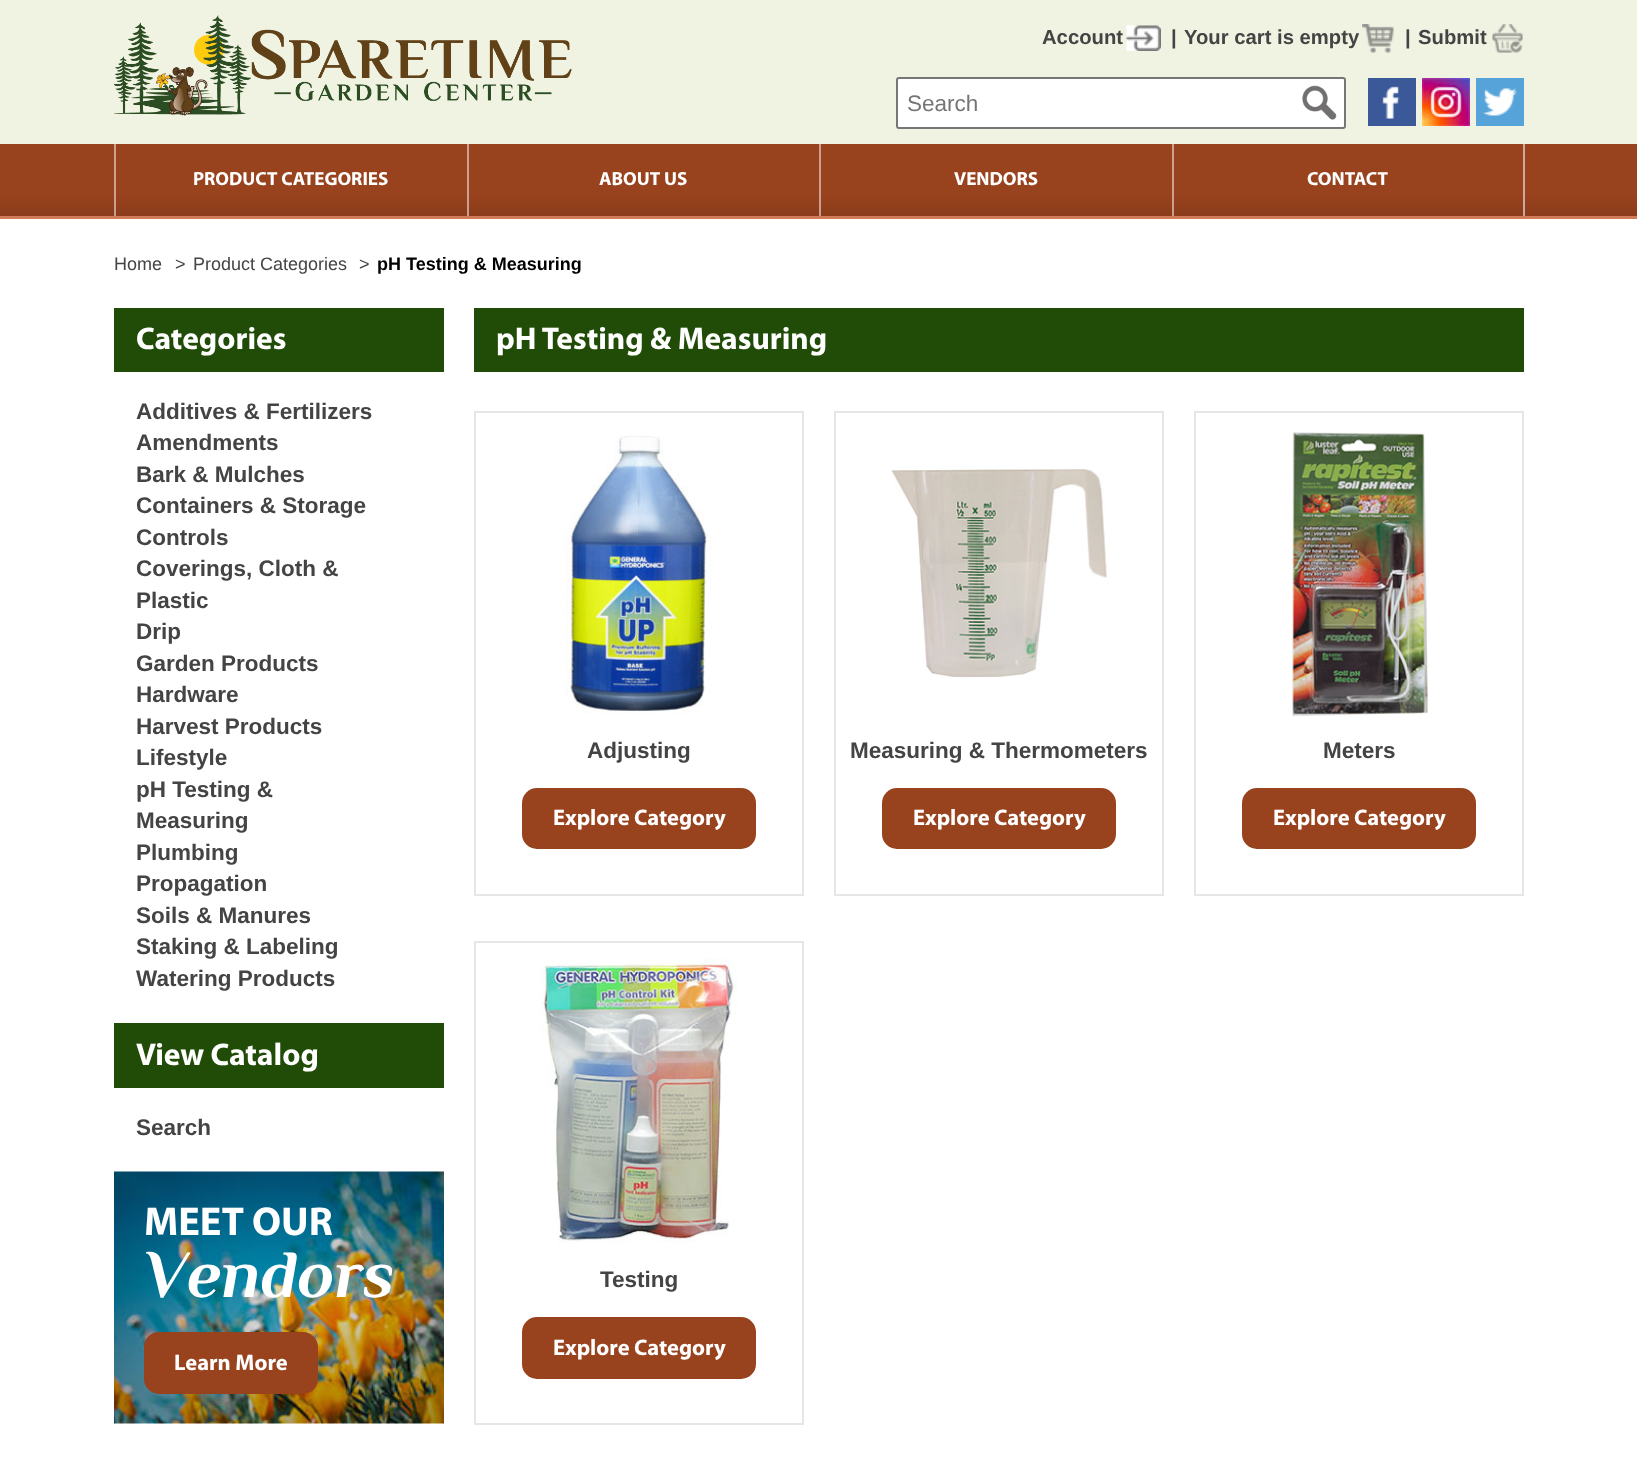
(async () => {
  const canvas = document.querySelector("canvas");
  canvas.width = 1637;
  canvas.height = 1468;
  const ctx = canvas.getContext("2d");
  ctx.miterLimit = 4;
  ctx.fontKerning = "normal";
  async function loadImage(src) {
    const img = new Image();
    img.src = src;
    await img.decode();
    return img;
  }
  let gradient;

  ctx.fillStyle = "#ffffff";
  ctx.fillRect(0, 0, 1637, 1468);
  ctx.fillStyle = "#f0f3e1";
  ctx.fillRect(0, 0, 1637, 144);
  ctx.drawImage(await loadImage("img/1.png"), 114, 15, 458, 101);
  ctx.drawImage(await loadImage("img/2.png"), 1126, 25, 35, 26);
  ctx.drawImage(await loadImage("img/3.png"), 1362, 24, 32, 29);
  ctx.drawImage(await loadImage("img/4.png"), 1492, 24, 31, 29);
  ctx.fillStyle = "#ffffff";
  ctx.beginPath();
  ctx.roundRect(897, 78, 448, 50, 2);
  ctx.fill();
  ctx.strokeStyle = "#767676";
  ctx.lineWidth = 2;
  ctx.stroke();
  ctx.drawImage(await loadImage("img/5.png"), 1302, 85, 35, 35);
  ctx.drawImage(await loadImage("img/6.png"), 1368, 78, 48, 48);
  ctx.drawImage(await loadImage("img/7.png"), 1422, 78, 48, 48);
  ctx.drawImage(await loadImage("img/8.png"), 1476, 78, 48, 48);
  gradient = ctx.createLinearGradient(819, 144, 819, 216);
  gradient.addColorStop(0.69, "#99421e");
  gradient.addColorStop(1, "#8b3c1b");
  ctx.fillStyle = gradient;
  ctx.fillRect(0, 144, 1637, 72);
  gradient = ctx.createLinearGradient(819, 144, 819, 216);
  gradient.addColorStop(0.69, "#cca18f");
  gradient.addColorStop(1, "#c59e8d");
  ctx.fillStyle = gradient;
  ctx.fillRect(1172, 144, 2, 72);
  gradient = ctx.createLinearGradient(819, 144, 819, 216);
  gradient.addColorStop(0.69, "#d1aa9a");
  gradient.addColorStop(1, "#cba798");
  ctx.fillStyle = gradient;
  ctx.fillRect(1523, 144, 2, 72);
  gradient = ctx.createLinearGradient(819, 144, 819, 216);
  gradient.addColorStop(0.69, "#cca18f");
  gradient.addColorStop(1, "#c59e8d");
  ctx.fillStyle = gradient;
  ctx.fillRect(819, 144, 2, 72);
  ctx.fillRect(467, 144, 2, 72);
  ctx.fillRect(114, 144, 2, 72);
  for (const [x, y, w, h, color] of [
    [0, 216, 1637, 3, "#d27b59"],
    [114, 308, 330, 64, "#214c07"],
    [114, 1023, 330, 65, "#214c07"],
  ]) {
    ctx.fillStyle = color;
    ctx.fillRect(x, y, w, h);
  }
  ctx.drawImage(await loadImage("img/9.png"), 114, 1171, 330, 253);
  ctx.fillStyle = "#99421e";
  ctx.beginPath();
  ctx.roundRect(144, 1332, 174, 62, 15);
  ctx.fill();
  ctx.fillStyle = "#214c07";
  ctx.fillRect(474, 308, 1050, 64);
  ctx.strokeStyle = "#e6e6e6";
  ctx.strokeRect(475, 412, 328, 483);
  ctx.drawImage(await loadImage("img/10.png"), 565, 435, 148, 279);
  ctx.fillStyle = "#99421e";
  ctx.beginPath();
  ctx.roundRect(522, 788, 234, 61, 15);
  ctx.fill();
  ctx.strokeRect(835, 412, 328, 483);
  ctx.drawImage(await loadImage("img/11.png"), 891, 469, 219, 209);
  ctx.beginPath();
  ctx.roundRect(882, 788, 234, 61, 15);
  ctx.fill();
  ctx.strokeRect(1195, 412, 328, 483);
  ctx.drawImage(await loadImage("img/12.png"), 1292, 432, 136, 284);
  ctx.beginPath();
  ctx.roundRect(1242, 788, 234, 61, 15);
  ctx.fill();
  ctx.strokeRect(475, 942, 328, 482);
  ctx.drawImage(await loadImage("img/13.png"), 540, 958, 197, 285);
  ctx.beginPath();
  ctx.roundRect(522, 1317, 234, 62, 15);
  ctx.fill();
  ctx.font = "bold 20.25px Liberation Sans";
  ctx.fillStyle = "#444444";
  for (const [text, x, y] of [
    ["Account", 1042, 44],
    ["|", 1171, 44],
    ["Your cart is empty", 1184, 44],
    ["|", 1405, 44],
    ["Submit", 1418, 44],
  ]) {
    ctx.fillText(text, x, y);
  }
  ctx.font = "22.5px Liberation Sans";
  ctx.fillStyle = "#757575";
  ctx.fillText("Search", 907, 111);
  ctx.font = "bold 19.1px Myriad";
  ctx.fillStyle = "#ffffff";
  for (const [text, x, y] of [
    ["PRODUCT CATEGORIES", 193, 185],
    ["ABOUT US", 599, 185],
    ["VENDORS", 954, 185],
    ["CONTACT", 1307, 185],
  ]) {
    ctx.fillText(text, x, y);
  }
  ctx.font = "18px Liberation Sans";
  ctx.fillStyle = "#444444";
  for (const [text, x, y] of [
    ["Home", 114, 270],
    [">", 175, 270],
    ["Product Categories", 193, 270],
    [">", 359, 270],
  ]) {
    ctx.fillText(text, x, y);
  }
  ctx.font = "bold 18px Liberation Sans";
  ctx.fillStyle = "#000000";
  ctx.fillText("pH Testing & Measuring", 377, 270);
  ctx.font = "bold 31.5px Myriad";
  ctx.fillStyle = "#ffffff";
  ctx.fillText("Categories", 136, 349);
  ctx.font = "bold 22.5px Liberation Sans";
  ctx.fillStyle = "#444444";
  for (const [text, x, y] of [
    ["Additives & Fertilizers", 136, 419],
    ["Amendments", 136, 450],
    ["Bark & Mulches", 136, 482],
    ["Containers & Storage", 136, 513],
    ["Controls", 136, 545],
    ["Coverings, Cloth &", 136, 576],
    ["Plastic", 136, 608],
    ["Drip", 136, 639],
    ["Garden Products", 136, 671],
    ["Hardware", 136, 702],
    ["Harvest Products", 136, 734],
    ["Lifestyle", 136, 765],
    ["pH Testing &", 136, 797],
    ["Measuring", 136, 828],
    ["Plumbing", 136, 860],
    ["Propagation", 136, 891],
    ["Soils & Manures", 136, 923],
    ["Staking & Labeling", 136, 954],
    ["Watering Products", 136, 986],
  ]) {
    ctx.fillText(text, x, y);
  }
  ctx.font = "bold 31.5px Myriad";
  ctx.fillStyle = "#ffffff";
  ctx.fillText("View Catalog", 136, 1065);
  ctx.font = "bold 22.5px Liberation Sans";
  ctx.fillStyle = "#444444";
  ctx.fillText("Search", 136, 1135);
  ctx.font = "bold 40.5px Myriad";
  ctx.fillStyle = "#ffffff";
  ctx.fillText("MEET OUR", 144, 1235);
  ctx.font = "italic bold 67.5px Philosopher";
  ctx.fillText("Vendors", 144, 1297);
  ctx.font = "bold 22.5px Myriad";
  ctx.fillText("Learn More", 174, 1370);
  ctx.font = "bold 31.5px Myriad";
  ctx.fillText("pH Testing & Measuring", 496, 349);
  ctx.font = "bold 22.5px Liberation Sans";
  ctx.fillStyle = "#444444";
  ctx.fillText("Adjusting", 587, 758);
  ctx.font = "bold 22.5px Myriad";
  ctx.fillStyle = "#ffffff";
  ctx.fillText("Explore Category", 553, 825);
  ctx.font = "bold 22.5px Liberation Sans";
  ctx.fillStyle = "#444444";
  ctx.fillText("Measuring & Thermometers", 850, 758);
  ctx.font = "bold 22.5px Myriad";
  ctx.fillStyle = "#ffffff";
  ctx.fillText("Explore Category", 913, 825);
  ctx.font = "bold 22.5px Liberation Sans";
  ctx.fillStyle = "#444444";
  ctx.fillText("Meters", 1323, 758);
  ctx.font = "bold 22.5px Myriad";
  ctx.fillStyle = "#ffffff";
  ctx.fillText("Explore Category", 1273, 825);
  ctx.font = "bold 22.5px Liberation Sans";
  ctx.fillStyle = "#444444";
  ctx.fillText("Testing", 600, 1287);
  ctx.font = "bold 22.5px Myriad";
  ctx.fillStyle = "#ffffff";
  ctx.fillText("Explore Category", 553, 1355);
})();
